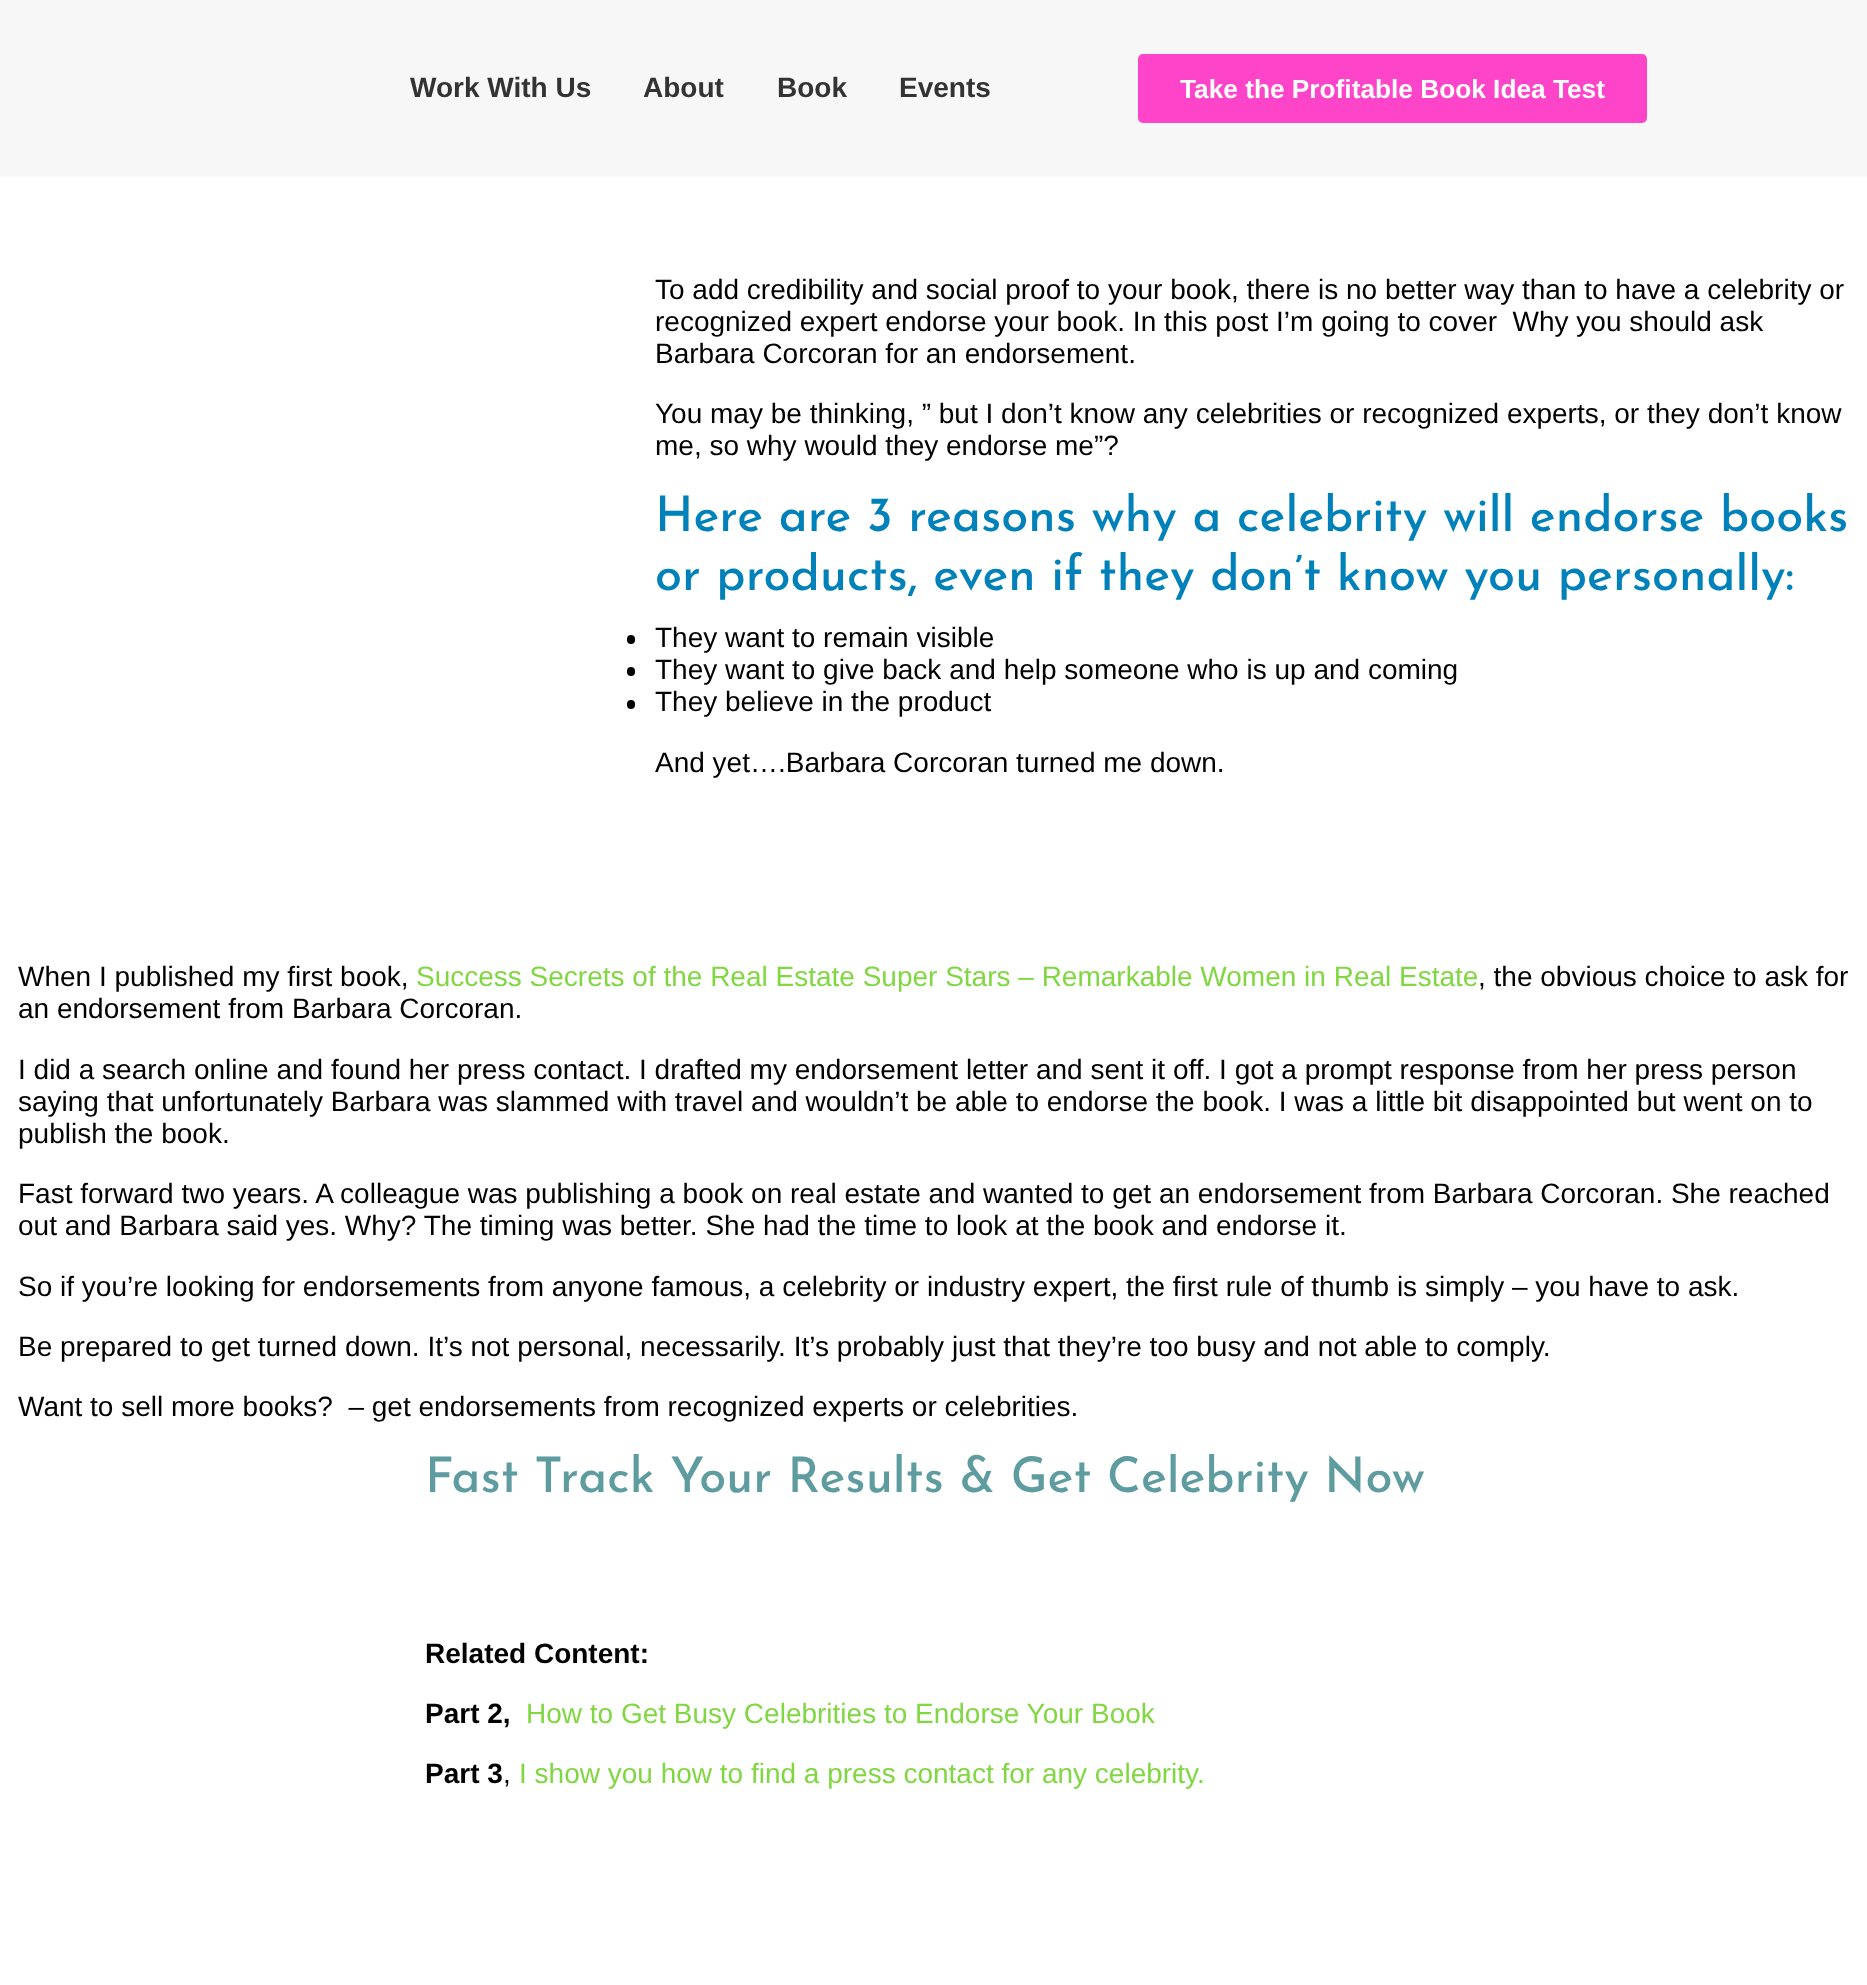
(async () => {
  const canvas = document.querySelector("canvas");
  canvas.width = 1867;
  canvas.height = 1985;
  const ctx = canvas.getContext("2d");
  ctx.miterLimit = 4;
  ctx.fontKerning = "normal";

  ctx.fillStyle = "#ffffff";
  ctx.fillRect(0, 0, 1867, 1985);
  ctx.fillStyle = "#f7f7f7";
  ctx.fillRect(0, 0, 1867, 177);
  ctx.fillStyle = "#fe44c9";
  ctx.beginPath();
  ctx.roundRect(1138, 54, 509, 69, 5);
  ctx.fill();
  ctx.fillStyle = "#000000";
  ctx.beginPath();
  ctx.roundRect(627, 635, 8, 9, 4);
  ctx.fill();
  ctx.beginPath();
  ctx.roundRect(627, 667, 8, 9, 4);
  ctx.fill();
  ctx.beginPath();
  ctx.roundRect(627, 700, 8, 9, 4);
  ctx.fill();
  ctx.font = "bold 28px Liberation Sans";
  ctx.fillStyle = "#333333";
  for (const [text, x, y] of [
    ["Work With Us", 410, 97],
    ["About", 643, 97],
    ["Book", 777, 97],
    ["Events", 899, 97],
  ]) {
    ctx.fillText(text, x, y);
  }
  ctx.font = "bold 26.25px Liberation Sans";
  ctx.fillStyle = "#ffffff";
  ctx.fillText("Take the Profitable Book Idea Test", 1180, 98);
  ctx.font = "28px Liberation Sans";
  ctx.fillStyle = "#000000";
  for (const [text, x, y] of [
    ["To add credibility and social proof to your book, there is no better way than to have a celebrity or", 655, 299],
    ["recognized expert endorse your book. In this post I’m going to cover  Why you should ask", 655, 331],
    ["Barbara Corcoran for an endorsement.", 655, 363],
    ["You may be thinking, ” but I don’t know any celebrities or recognized experts, or they don’t know", 655, 423],
    ["me, so why would they endorse me”?", 655, 455],
  ]) {
    ctx.fillText(text, x, y);
  }
  ctx.font = "500 49px Josefin Sans";
  ctx.fillStyle = "#0081ba";
  ctx.fillText("Here are 3 reasons why a celebrity will endorse books", 655, 531);
  ctx.fillText("or products, even if they don’t know you personally:", 655, 590);
  ctx.font = "28px Liberation Sans";
  ctx.fillStyle = "#000000";
  for (const [text, x, y] of [
    ["They want to remain visible", 655, 647],
    ["They want to give back and help someone who is up and coming", 655, 679],
    ["They believe in the product", 655, 711],
    ["And yet….Barbara Corcoran turned me down.", 655, 772],
    ["When I published my first book,", 18, 986],
  ]) {
    ctx.fillText(text, x, y);
  }
  ctx.fillStyle = "#81d742";
  ctx.fillText("Success Secrets of the Real Estate Super Stars – Remarkable Women in Real Estate", 416, 986);
  ctx.fillStyle = "#000000";
  for (const [text, x, y] of [
    [", the obvious choice to ask for", 1478, 986],
    ["an endorsement from Barbara Corcoran.", 18, 1018],
    ["I did a search online and found her press contact. I drafted my endorsement letter and sent it off. I got a prompt response from her press person", 18, 1079],
    ["saying that unfortunately Barbara was slammed with travel and wouldn’t be able to endorse the book. I was a little bit disappointed but went on to", 18, 1111],
    ["publish the book.", 18, 1143],
    ["Fast forward two years. A colleague was publishing a book on real estate and wanted to get an endorsement from Barbara Corcoran. She reached", 18, 1203],
    ["out and Barbara said yes. Why? The timing was better. She had the time to look at the book and endorse it.", 18, 1235],
    ["So if you’re looking for endorsements from anyone famous, a celebrity or industry expert, the first rule of thumb is simply – you have to ask.", 18, 1296],
    ["Be prepared to get turned down. It’s not personal, necessarily. It’s probably just that they’re too busy and not able to comply.", 18, 1356],
    ["Want to sell more books?  – get endorsements from recognized experts or celebrities.", 18, 1416],
  ]) {
    ctx.fillText(text, x, y);
  }
  ctx.font = "500 49px Josefin Sans";
  ctx.fillStyle = "#5e9ca0";
  ctx.fillText("Fast Track Your Results & Get Celebrity Now", 425, 1492);
  ctx.font = "bold 28px Liberation Sans";
  ctx.fillStyle = "#000000";
  ctx.fillText("Related Content:", 425, 1663);
  ctx.fillText("Part 2,", 425, 1723);
  ctx.font = "28px Liberation Sans";
  ctx.fillStyle = "#81d742";
  ctx.fillText("How to Get Busy Celebrities to Endorse Your Book", 526, 1723);
  ctx.font = "bold 28px Liberation Sans";
  ctx.fillStyle = "#000000";
  ctx.fillText("Part 3", 425, 1783);
  ctx.font = "28px Liberation Sans";
  ctx.fillText(",", 503, 1783);
  ctx.fillStyle = "#81d742";
  ctx.fillText("I show you how to find a press contact for any celebrity.", 519, 1783);
})();
